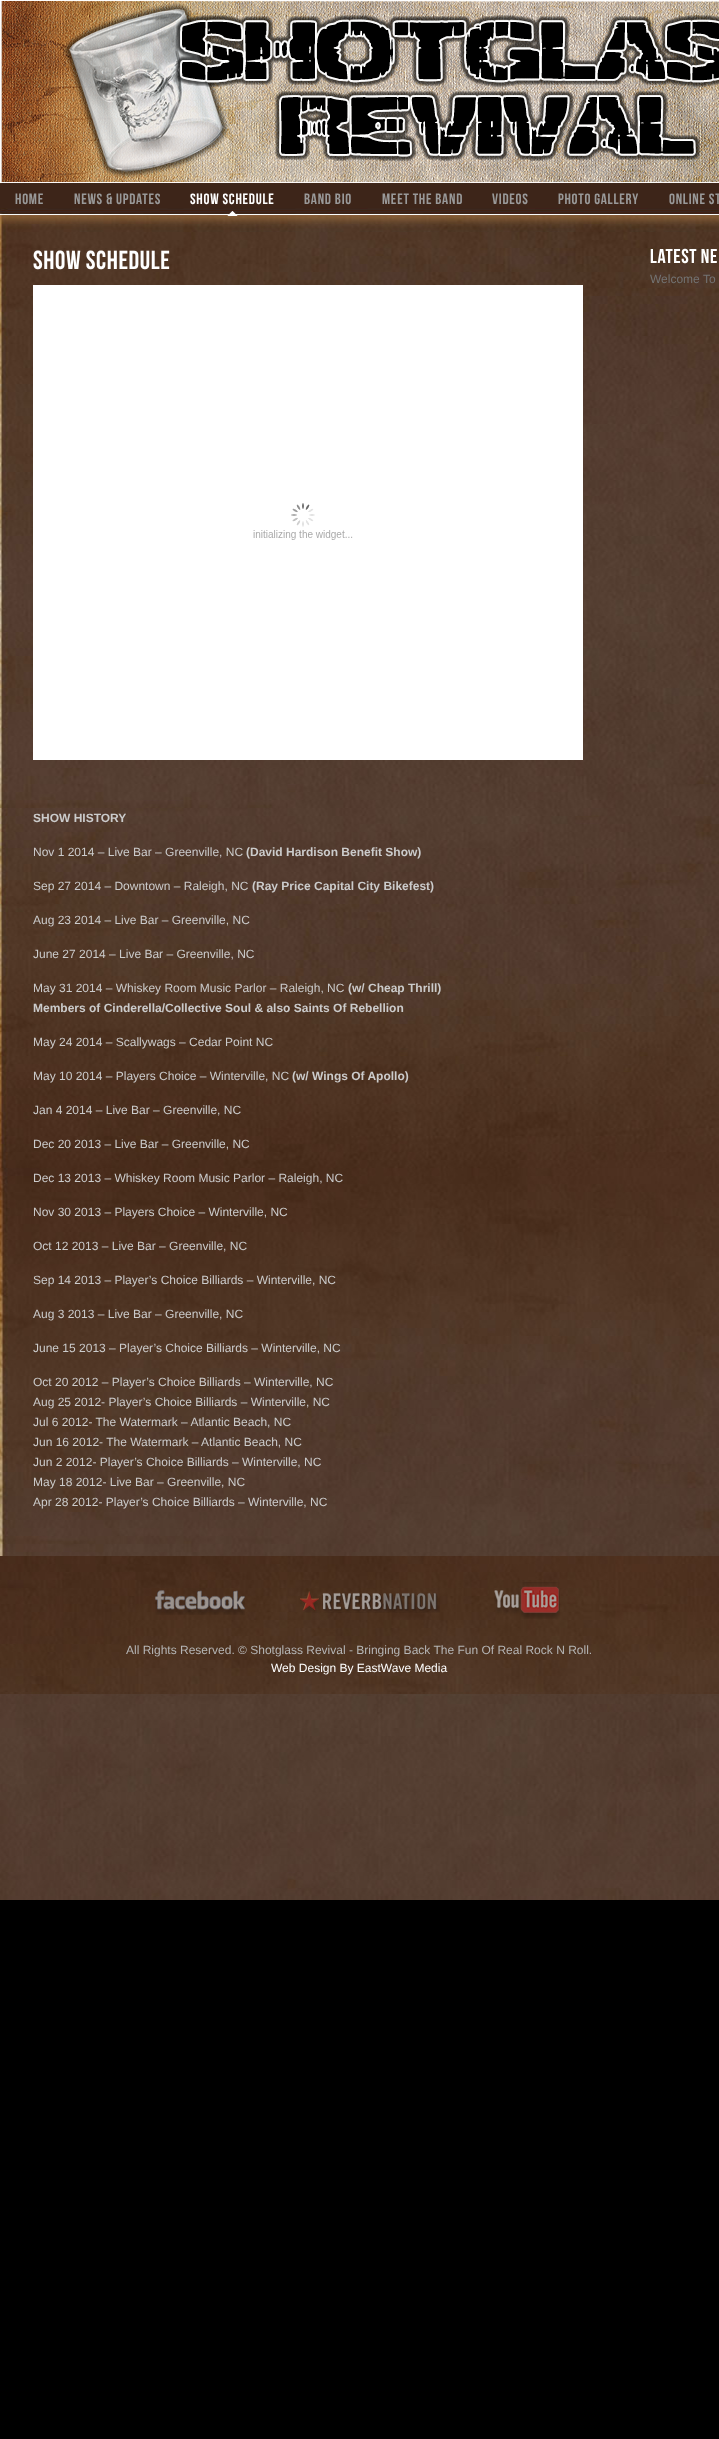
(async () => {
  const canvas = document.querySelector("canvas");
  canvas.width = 719;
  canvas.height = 2439;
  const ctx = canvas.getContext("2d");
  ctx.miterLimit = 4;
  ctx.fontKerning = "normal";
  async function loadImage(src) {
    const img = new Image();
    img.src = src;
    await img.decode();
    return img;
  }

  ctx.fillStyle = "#000000";
  ctx.fillRect(0, 0, 719, 2439);
  ctx.drawImage(await loadImage("img/1.png"), 0, 1694, 719, 206);
  ctx.drawImage(await loadImage("img/2.png"), 0, 182, 719, 1374);
  ctx.drawImage(await loadImage("img/3.png"), 0, 0, 719, 182);
  ctx.drawImage(await loadImage("img/4.png"), 227, 211, 11, 5);
  ctx.drawImage(await loadImage("img/5.png"), 33, 285, 550, 475);
  ctx.drawImage(await loadImage("img/6.png"), 0, 1556, 719, 138);
  ctx.drawImage(await loadImage("img/7.png"), 155, 1590, 90, 25);
  ctx.drawImage(await loadImage("img/8.png"), 300, 1591, 140, 22);
  ctx.drawImage(await loadImage("img/9.png"), 494, 1582, 66, 37);
  ctx.letterSpacing = "0.75px";
  ctx.font = "15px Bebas";
  ctx.fillStyle = "#999999";
  ctx.fillText("Home", 15, 204);
  ctx.fillText("News & Updates", 74, 204);
  ctx.fillStyle = "#ffffff";
  ctx.fillText("Show Schedule", 190, 204);
  ctx.fillStyle = "#999999";
  for (const [text, x, y] of [
    ["Band Bio", 304, 204],
    ["Meet The Band", 382, 204],
    ["Videos", 492, 204],
    ["Photo Gallery", 558, 204],
    ["Online St", 669, 204],
  ]) {
    ctx.fillText(text, x, y);
  }
  ctx.letterSpacing = "0.6px";
  ctx.font = "26px Bebas";
  ctx.fillStyle = "#ffffff";
  ctx.fillText("Show Schedule", 33, 269);
  ctx.letterSpacing = "0px";
  ctx.font = "bold 12px Liberation Sans";
  ctx.fillStyle = "#cbcbcb";
  ctx.fillText("SHOW HISTORY", 33, 822);
  ctx.font = "12px Liberation Sans";
  ctx.fillText("Nov 1 2014 – Live Bar – Greenville, NC", 33, 856);
  ctx.font = "bold 12px Liberation Sans";
  ctx.fillText("(David Hardison Benefit Show)", 246, 856);
  ctx.font = "12px Liberation Sans";
  ctx.fillText("Sep 27 2014 – Downtown – Raleigh, NC", 33, 890);
  ctx.font = "bold 12px Liberation Sans";
  ctx.fillText("(Ray Price Capital City Bikefest)", 252, 890);
  ctx.font = "12px Liberation Sans";
  for (const [text, x, y] of [
    ["Aug 23 2014 – Live Bar – Greenville, NC", 33, 924],
    ["June 27 2014 – Live Bar – Greenville, NC", 33, 958],
    ["May 31 2014 – Whiskey Room Music Parlor – Raleigh, NC", 33, 992],
  ]) {
    ctx.fillText(text, x, y);
  }
  ctx.font = "bold 12px Liberation Sans";
  ctx.fillText("(w/ Cheap Thrill)", 348, 992);
  ctx.fillText("Members of Cinderella/Collective Soul & also Saints Of Rebellion", 33, 1012);
  ctx.font = "12px Liberation Sans";
  ctx.fillText("May 24 2014 – Scallywags – Cedar Point NC", 33, 1046);
  ctx.fillText("May 10 2014 – Players Choice – Winterville, NC", 33, 1080);
  ctx.font = "bold 12px Liberation Sans";
  ctx.fillText("(w/ Wings Of Apollo)", 292, 1080);
  ctx.font = "12px Liberation Sans";
  for (const [text, x, y] of [
    ["Jan 4 2014 – Live Bar – Greenville, NC", 33, 1114],
    ["Dec 20 2013 – Live Bar – Greenville, NC", 33, 1148],
    ["Dec 13 2013 – Whiskey Room Music Parlor – Raleigh, NC", 33, 1182],
    ["Nov 30 2013 – Players Choice – Winterville, NC", 33, 1216],
    ["Oct 12 2013 – Live Bar – Greenville, NC", 33, 1250],
    ["Sep 14 2013 – Player’s Choice Billiards – Winterville, NC", 33, 1284],
    ["Aug 3 2013 – Live Bar – Greenville, NC", 33, 1318],
    ["June 15 2013 – Player’s Choice Billiards – Winterville, NC", 33, 1352],
    ["Oct 20 2012 – Player’s Choice Billiards – Winterville, NC", 33, 1386],
    ["Aug 25 2012- Player’s Choice Billiards – Winterville, NC", 33, 1406],
    ["Jul 6 2012- The Watermark – Atlantic Beach, NC", 33, 1426],
    ["Jun 16 2012- The Watermark – Atlantic Beach, NC", 33, 1446],
    ["Jun 2 2012- Player’s Choice Billiards – Winterville, NC", 33, 1466],
    ["May 18 2012- Live Bar – Greenville, NC", 33, 1486],
    ["Apr 28 2012- Player’s Choice Billiards – Winterville, NC", 33, 1506],
  ]) {
    ctx.fillText(text, x, y);
  }
  ctx.letterSpacing = "0.6px";
  ctx.font = "20px Bebas";
  ctx.fillStyle = "#ffffff";
  ctx.fillText("Latest Ne", 650, 263);
  ctx.letterSpacing = "0px";
  ctx.font = "12px Liberation Sans";
  ctx.fillStyle = "#737373";
  ctx.fillText("Welcome To", 650, 283);
  ctx.fillStyle = "#b5b5b5";
  ctx.fillText("All Rights Reserved. © Shotglass Revival - Bringing Back The Fun Of Real Rock N Roll.", 126, 1654);
  ctx.fillStyle = "#ffffff";
  ctx.fillText("Web Design By EastWave Media", 271, 1672);
})();
